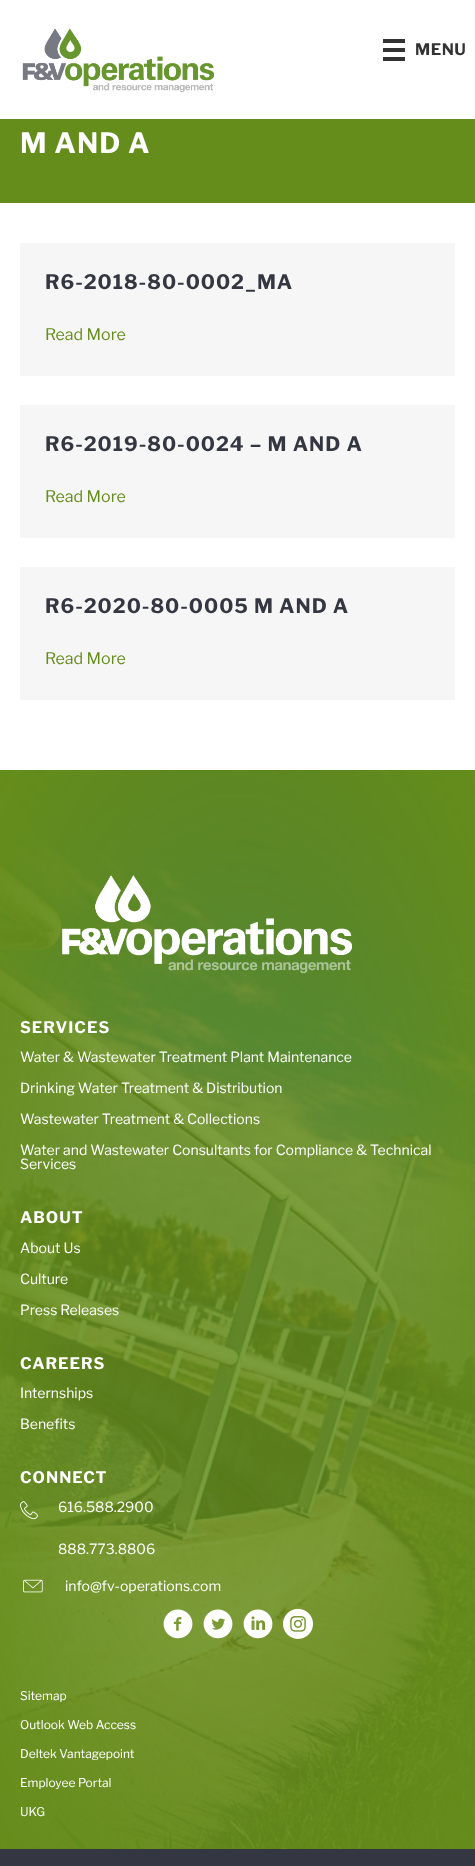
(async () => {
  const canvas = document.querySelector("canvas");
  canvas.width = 475;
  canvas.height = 1866;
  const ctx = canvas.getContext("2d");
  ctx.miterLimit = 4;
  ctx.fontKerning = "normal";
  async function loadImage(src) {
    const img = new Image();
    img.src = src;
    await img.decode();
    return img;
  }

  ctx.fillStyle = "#ffffff";
  ctx.fillRect(0, 0, 475, 1866);
  ctx.drawImage(await loadImage("img/1.png"), 22, 28, 192, 65);
  for (const [x, y, w, h, color] of [
    [383, 39, 22, 4, "#333333"],
    [383, 48, 22, 4, "#333333"],
    [383, 57, 22, 4, "#333333"],
    [0, 119, 475, 84, "#658d1b"],
    [20, 243, 435, 133, "#f6f6f6"],
    [20, 405, 435, 133, "#f6f6f6"],
    [20, 567, 435, 133, "#f6f6f6"],
  ]) {
    ctx.fillStyle = color;
    ctx.fillRect(x, y, w, h);
  }
  ctx.drawImage(await loadImage("img/2.png"), 0, 770, 475, 1079);
  ctx.drawImage(await loadImage("img/3.png"), 62, 875, 290, 99);
  ctx.drawImage(await loadImage("img/4.png"), 20, 1501, 18, 19);
  ctx.drawImage(await loadImage("img/5.png"), 23, 1579, 20, 14);
  ctx.drawImage(await loadImage("img/6.png"), 163, 1609, 30, 30);
  ctx.drawImage(await loadImage("img/7.png"), 203, 1609, 30, 30);
  ctx.drawImage(await loadImage("img/8.png"), 243, 1609, 30, 30);
  ctx.drawImage(await loadImage("img/9.png"), 283, 1608, 30, 31);
  ctx.fillStyle = "#343741";
  ctx.fillRect(0, 1849, 475, 17);
  ctx.letterSpacing = "0.5px";
  ctx.font = "bold 16px Libre Franklin";
  ctx.fillStyle = "#333333";
  ctx.fillText("MENU", 415, 55);
  ctx.letterSpacing = "1px";
  ctx.font = "bold 28px Libre Franklin";
  ctx.fillStyle = "#ffffff";
  ctx.fillText("M AND A", 20, 153);
  ctx.font = "bold 20px Libre Franklin";
  ctx.fillStyle = "#343741";
  ctx.fillText("R6-2018-80-0002_MA", 45, 289);
  ctx.letterSpacing = "0px";
  ctx.font = "16px Libre Franklin";
  ctx.fillStyle = "#658d1b";
  ctx.fillText("Read More", 45, 340);
  ctx.letterSpacing = "1px";
  ctx.font = "bold 20px Libre Franklin";
  ctx.fillStyle = "#343741";
  ctx.fillText("R6-2019-80-0024 – M AND A", 45, 451);
  ctx.letterSpacing = "0px";
  ctx.font = "16px Libre Franklin";
  ctx.fillStyle = "#658d1b";
  ctx.fillText("Read More", 45, 502);
  ctx.letterSpacing = "1px";
  ctx.font = "bold 20px Libre Franklin";
  ctx.fillStyle = "#343741";
  ctx.fillText("R6-2020-80-0005 M AND A", 45, 613);
  ctx.letterSpacing = "0px";
  ctx.font = "16px Libre Franklin";
  ctx.fillStyle = "#658d1b";
  ctx.fillText("Read More", 45, 664);
  ctx.letterSpacing = "1px";
  ctx.font = "bold 16px Libre Franklin";
  ctx.fillStyle = "#ffffff";
  ctx.fillText("SERVICES", 20, 1033);
  ctx.letterSpacing = "0px";
  ctx.font = "14px Libre Franklin";
  for (const [text, x, y] of [
    ["Water & Wastewater Treatment Plant Maintenance", 20, 1062],
    ["Drinking Water Treatment & Distribution", 20, 1093],
    ["Wastewater Treatment & Collections", 20, 1124],
    ["Water and Wastewater Consultants for Compliance & Technical", 20, 1155],
    ["Services", 20, 1169],
  ]) {
    ctx.fillText(text, x, y);
  }
  ctx.letterSpacing = "1px";
  ctx.font = "bold 16px Libre Franklin";
  ctx.fillText("ABOUT", 20, 1223);
  ctx.letterSpacing = "0px";
  ctx.font = "14px Libre Franklin";
  for (const [text, x, y] of [
    ["About Us", 20, 1253],
    ["Culture", 20, 1284],
    ["Press Releases", 20, 1315],
  ]) {
    ctx.fillText(text, x, y);
  }
  ctx.letterSpacing = "1px";
  ctx.font = "bold 16px Libre Franklin";
  ctx.fillText("CAREERS", 20, 1369);
  ctx.letterSpacing = "0px";
  ctx.font = "14px Libre Franklin";
  ctx.fillText("Internships", 20, 1398);
  ctx.fillText("Benefits", 20, 1429);
  ctx.letterSpacing = "1px";
  ctx.font = "bold 16px Libre Franklin";
  ctx.fillText("CONNECT", 20, 1483);
  ctx.letterSpacing = "0px";
  ctx.font = "14px Libre Franklin";
  for (const [text, x, y] of [
    ["616.588.2900", 58, 1512],
    ["888.773.8806", 58, 1554],
    ["info@fv-operations.com", 65, 1591],
  ]) {
    ctx.fillText(text, x, y);
  }
  ctx.font = "12px Libre Franklin";
  for (const [text, x, y] of [
    ["Sitemap", 20, 1700],
    ["Outlook Web Access", 20, 1729],
    ["Deltek Vantagepoint", 20, 1758],
    ["Employee Portal", 20, 1787],
    ["UKG", 20, 1816],
  ]) {
    ctx.fillText(text, x, y);
  }
})();
